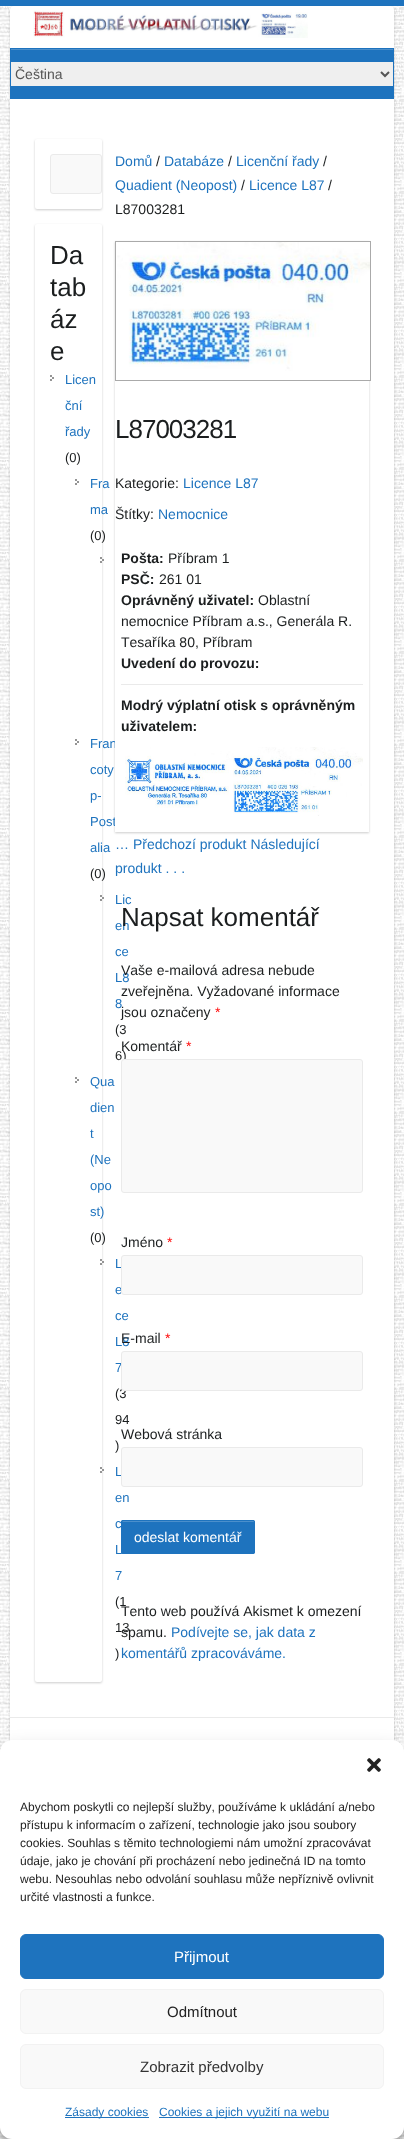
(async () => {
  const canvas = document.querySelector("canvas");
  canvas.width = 404;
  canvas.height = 2139;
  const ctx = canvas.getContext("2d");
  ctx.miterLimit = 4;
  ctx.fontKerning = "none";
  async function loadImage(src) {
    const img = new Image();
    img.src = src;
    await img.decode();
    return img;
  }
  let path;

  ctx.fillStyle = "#ffffff";
  ctx.fillRect(0, 0, 404, 2139);
  ctx.drawImage(await loadImage("img/1.png"), 0, 6, 404, 2133);
  ctx.fillStyle = "#1e73be";
  ctx.fillRect(0, 0, 404, 6);
  ctx.fillStyle = "rgba(0, 0, 0, 0.2)";
  ctx.filter = "blur(1px)";
  ctx.beginPath();
  ctx.roundRect(10, 7, 384, 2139, 4);
  ctx.fill();
  ctx.filter = "none";
  ctx.fillStyle = "#ffffff";
  ctx.beginPath();
  ctx.roundRect(10, 6, 384, 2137, 4);
  ctx.fill();
  ctx.drawImage(await loadImage("img/2.png"), 33, 10, 275, 28);
  for (const [x, y, w, h, color] of [
    [10, 48, 384, 51, "#1e73be"],
    [11, 49, 382, 1, "#4b8fcb"],
    [11, 62, 382, 24, "#efefef"],
  ]) {
    ctx.fillStyle = color;
    ctx.fillRect(x, y, w, h);
  }
  path = new Path2D("M381 72L385 76L389 72");
  ctx.strokeStyle = "#555555";
  ctx.lineWidth = 2;
  ctx.stroke(path);
  ctx.fillStyle = "rgba(0, 0, 0, 0.2)";
  ctx.filter = "blur(1px)";
  ctx.beginPath();
  ctx.roundRect(35, 140, 67, 70, 2);
  ctx.fill();
  ctx.filter = "none";
  ctx.fillStyle = "#ffffff";
  ctx.beginPath();
  ctx.roundRect(35, 139, 67, 70, 2);
  ctx.fill();
  ctx.fillStyle = "#f9f9f9";
  ctx.beginPath();
  ctx.roundRect(50.5, 154.5, 51, 39, 2.5);
  ctx.fill();
  ctx.strokeStyle = "#eaeaea";
  ctx.lineWidth = 1;
  ctx.stroke();
  ctx.fillStyle = "rgba(0, 0, 0, 0.2)";
  ctx.filter = "blur(1px)";
  ctx.beginPath();
  ctx.roundRect(35, 225, 67, 1458, 2);
  ctx.fill();
  ctx.filter = "none";
  ctx.fillStyle = "#ffffff";
  ctx.beginPath();
  ctx.roundRect(35, 224, 67, 1458, 2);
  ctx.fill();
  ctx.drawImage(await loadImage("img/3.png"), 50, 375, 4, 6);
  ctx.drawImage(await loadImage("img/3.png"), 75, 479, 4, 6);
  ctx.drawImage(await loadImage("img/4.png"), 100, 557, 4, 6);
  ctx.drawImage(await loadImage("img/3.png"), 75, 739, 4, 6);
  ctx.drawImage(await loadImage("img/4.png"), 100, 895, 4, 6);
  ctx.drawImage(await loadImage("img/3.png"), 75, 1077, 4, 6);
  ctx.drawImage(await loadImage("img/4.png"), 100, 1259, 4, 6);
  ctx.drawImage(await loadImage("img/4.png"), 100, 1467, 4, 6);
  ctx.fillStyle = "rgba(0, 0, 0, 0.2)";
  ctx.filter = "blur(1px)";
  ctx.beginPath();
  ctx.rect(115, 242, 254, 591);
  ctx.fill();
  ctx.filter = "none";
  ctx.fillStyle = "#1e73be";
  ctx.beginPath();
  ctx.roundRect(121, 1520, 134, 34, 2);
  ctx.fill();
  ctx.fillStyle = "rgba(255, 255, 255, 0.2)";
  path = new Path2D("M123 1522H253C254 1522 254 1522 254 1523V1521H145C144 1521 122 1515 122 1523C122 1522 122 1522 123 1522Z");
  ctx.fill(path);
  ctx.beginPath();
  ctx.roundRect(121.5, 1520.5, 133, 33, 1.5);
  ctx.strokeStyle = "#1e73be";
  ctx.stroke();
  ctx.fillStyle = "#eaeaea";
  ctx.fillRect(10, 1717, 384, 1);
  ctx.fillStyle = "rgba(0, 0, 0, 0.23)";
  ctx.filter = "blur(3px)";
  ctx.beginPath();
  ctx.roundRect(0, 1746, 404, 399, 12);
  ctx.fill();
  ctx.filter = "none";
  ctx.fillStyle = "rgba(0, 0, 0, 0.19)";
  ctx.filter = "blur(10px)";
  ctx.beginPath();
  ctx.roundRect(0, 1750, 404, 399, 12);
  ctx.fill();
  ctx.filter = "none";
  ctx.fillStyle = "#ffffff";
  ctx.beginPath();
  ctx.roundRect(0, 1740, 404, 399, 12);
  ctx.fill();
  ctx.drawImage(await loadImage("img/7.png"), 367, 1758, 14, 14);
  ctx.fillStyle = "#1e73be";
  ctx.beginPath();
  ctx.roundRect(20.5, 1934.5, 363, 44, 5.5);
  ctx.fill();
  ctx.stroke();
  ctx.fillStyle = "#f9f9f9";
  ctx.beginPath();
  ctx.roundRect(20.5, 1989.5, 363, 44, 5.5);
  ctx.fill();
  ctx.strokeStyle = "#f2f2f2";
  ctx.stroke();
  ctx.beginPath();
  ctx.roundRect(20.5, 2044.5, 363, 44, 5.5);
  ctx.fill();
  ctx.stroke();
  ctx.fillStyle = "#1e73be";
  ctx.fillRect(65, 2117, 84, 1);
  ctx.fillRect(159, 2117, 170, 1);
  ctx.font = "14px Liberation Sans";
  ctx.fillStyle = "#555555";
  ctx.fillText("Čeština", 15, 79);
  ctx.font = "26px Liberation Sans";
  ctx.fillStyle = "#1b1e1f";
  for (const [text, x, y] of [
    ["Da", 50, 264],
    ["tab", 50, 296],
    ["áz", 50, 328],
    ["e", 50, 360],
  ]) {
    ctx.fillText(text, x, y);
  }
  ctx.font = "13px Liberation Sans";
  ctx.fillStyle = "#1e73be";
  for (const [text, x, y] of [
    ["Licen", 65, 384],
    ["ční", 65, 410],
    ["řady", 65, 436],
  ]) {
    ctx.fillText(text, x, y);
  }
  ctx.fillStyle = "#1b1e1f";
  ctx.fillText("(0)", 65, 462);
  ctx.fillStyle = "#1e73be";
  ctx.fillText("Fra", 90, 488);
  ctx.fillText("ma", 90, 514);
  ctx.fillStyle = "#1b1e1f";
  ctx.fillText("(0)", 90, 540);
  ctx.fillStyle = "#1e73be";
  for (const [text, x, y] of [
    ["Fran", 90, 748],
    ["coty", 90, 774],
    ["p-", 90, 800],
    ["Post", 90, 826],
    ["alia", 90, 852],
  ]) {
    ctx.fillText(text, x, y);
  }
  ctx.fillStyle = "#1b1e1f";
  ctx.fillText("(0)", 90, 878);
  ctx.fillStyle = "#1e73be";
  for (const [text, x, y] of [
    ["Lic", 115, 904],
    ["en", 115, 930],
    ["ce", 115, 956],
    ["L8", 115, 982],
    ["8", 115, 1008],
  ]) {
    ctx.fillText(text, x, y);
  }
  ctx.fillStyle = "#1b1e1f";
  ctx.fillText("(3", 115, 1034);
  ctx.fillText("6)", 115, 1060);
  ctx.fillStyle = "#1e73be";
  for (const [text, x, y] of [
    ["Qua", 90, 1086],
    ["dien", 90, 1112],
    ["t", 90, 1138],
    ["(Ne", 90, 1164],
    ["opo", 90, 1190],
    ["st)", 90, 1216],
  ]) {
    ctx.fillText(text, x, y);
  }
  ctx.fillStyle = "#1b1e1f";
  ctx.fillText("(0)", 90, 1242);
  ctx.fillStyle = "#1e73be";
  for (const [text, x, y] of [
    ["L", 115, 1268],
    ["e", 115, 1294],
    ["ce", 115, 1320],
    ["L8", 115, 1346],
    ["7", 115, 1372],
  ]) {
    ctx.fillText(text, x, y);
  }
  ctx.fillStyle = "#1b1e1f";
  for (const [text, x, y] of [
    ["(3", 115, 1398],
    ["94", 115, 1424],
    [")", 115, 1450],
  ]) {
    ctx.fillText(text, x, y);
  }
  ctx.fillStyle = "#1e73be";
  for (const [text, x, y] of [
    ["L", 115, 1476],
    ["en", 115, 1502],
    ["c", 115, 1528],
    ["L", 115, 1554],
    ["7", 115, 1580],
  ]) {
    ctx.fillText(text, x, y);
  }
  ctx.fillStyle = "#1b1e1f";
  for (const [text, x, y] of [
    ["(1", 115, 1606],
    ["13", 115, 1632],
    [")", 115, 1658],
  ]) {
    ctx.fillText(text, x, y);
  }
  ctx.font = "14px Liberation Sans";
  ctx.fillStyle = "#1e73be";
  ctx.fillText("Domů", 115, 166);
  ctx.fillStyle = "#1b1e1f";
  ctx.fillText("/", 156, 166);
  ctx.fillStyle = "#1e73be";
  ctx.fillText("Databáze", 164, 166);
  ctx.fillStyle = "#1b1e1f";
  ctx.fillText("/", 228, 166);
  ctx.fillStyle = "#1e73be";
  ctx.fillText("Licenční řady", 236, 166);
  ctx.fillStyle = "#1b1e1f";
  ctx.fillText("/", 323, 166);
  ctx.fillStyle = "#1e73be";
  ctx.fillText("Quadient (Neopost)", 115, 190);
  ctx.fillStyle = "#1b1e1f";
  ctx.fillText("/", 241, 190);
  ctx.fillStyle = "#1e73be";
  ctx.fillText("Licence L87", 249, 190);
  ctx.fillStyle = "#1b1e1f";
  ctx.fillText("/", 328, 190);
  ctx.fillText("L87003281", 115, 214);
  ctx.fillStyle = "#ffffff";
  ctx.fillRect(115, 242, 254, 590);
  ctx.strokeStyle = "#aaaaaa";
  ctx.strokeRect(115.5, 241.5, 255, 139);
  ctx.drawImage(await loadImage("img/5.png"), 117, 242, 253, 138);
  ctx.letterSpacing = "-1px";
  ctx.font = "26px Liberation Sans";
  ctx.fillStyle = "#1b1e1f";
  ctx.fillText("L87003281", 115, 438);
  ctx.letterSpacing = "0px";
  ctx.font = "14px Liberation Sans";
  ctx.fillText("Kategorie:", 115, 488);
  ctx.fillStyle = "#1e73be";
  ctx.fillText("Licence L87", 183, 488);
  ctx.fillStyle = "#1b1e1f";
  ctx.fillText("Štítky:", 115, 519);
  ctx.fillStyle = "#1e73be";
  ctx.fillText("Nemocnice", 158, 519);
  ctx.font = "bold 14px Liberation Sans";
  ctx.fillStyle = "#1b1e1f";
  ctx.fillText("Pošta:", 121, 563);
  ctx.font = "14px Liberation Sans";
  ctx.fillText("Příbram 1", 168, 563);
  ctx.font = "bold 14px Liberation Sans";
  ctx.fillText("PSČ:", 121, 584);
  ctx.font = "14px Liberation Sans";
  ctx.fillText("261 01", 159, 584);
  ctx.font = "bold 14px Liberation Sans";
  ctx.fillText("Oprávněný uživatel:", 121, 605);
  ctx.font = "14px Liberation Sans";
  for (const [text, x, y] of [
    ["Oblastní", 258, 605],
    ["nemocnice Příbram a.s., Generála R.", 121, 626],
    ["Tesaříka 80, Příbram", 121, 647],
  ]) {
    ctx.fillText(text, x, y);
  }
  ctx.font = "bold 14px Liberation Sans";
  ctx.fillText("Uvedení do provozu:", 121, 668);
  ctx.fillStyle = "#eaeaea";
  ctx.fillRect(121, 684, 242, 1);
  ctx.fillStyle = "#1b1e1f";
  ctx.fillText("Modrý výplatní otisk s oprávněným", 121, 710);
  ctx.fillText("uživatelem:", 121, 731);
  ctx.drawImage(await loadImage("img/6.png"), 125, 747, 238, 69);
  ctx.font = "14px Liberation Sans";
  ctx.fillStyle = "#1e73be";
  ctx.fillText("… Předchozí produkt Následující", 115, 849);
  ctx.fillText("produkt . . .", 115, 873);
  ctx.font = "26px Liberation Sans";
  ctx.fillStyle = "#1b1e1f";
  ctx.fillText("Napsat komentář", 121, 926);
  ctx.font = "14px Liberation Sans";
  for (const [text, x, y] of [
    ["Vaše e-mailová adresa nebude", 121, 975],
    ["zveřejněna. Vyžadované informace", 121, 996],
    ["jsou označeny", 121, 1017],
  ]) {
    ctx.fillText(text, x, y);
  }
  ctx.fillStyle = "#ff0000";
  ctx.fillText("*", 215, 1017);
  ctx.fillStyle = "#1b1e1f";
  ctx.fillText("Komentář", 121, 1051);
  ctx.fillStyle = "#ff0000";
  ctx.fillText("*", 186, 1051);
  ctx.fillStyle = "#f9f9f9";
  ctx.beginPath();
  ctx.roundRect(121.5, 1059.5, 241, 133, 2.5);
  ctx.fill();
  ctx.strokeStyle = "#eaeaea";
  ctx.stroke();
  ctx.fillStyle = "#1b1e1f";
  ctx.fillText("Jméno", 121, 1247);
  ctx.fillStyle = "#ff0000";
  ctx.fillText("*", 167, 1247);
  ctx.fillStyle = "#f9f9f9";
  ctx.beginPath();
  ctx.roundRect(121.5, 1255.5, 241, 39, 2.5);
  ctx.fill();
  ctx.stroke();
  ctx.fillStyle = "#1b1e1f";
  ctx.fillText("E-mail", 121, 1343);
  ctx.fillStyle = "#ff0000";
  ctx.fillText("*", 165, 1343);
  ctx.fillStyle = "#f9f9f9";
  ctx.beginPath();
  ctx.roundRect(121.5, 1351.5, 241, 39, 2.5);
  ctx.fill();
  ctx.stroke();
  ctx.fillStyle = "#1b1e1f";
  ctx.fillText("Webová stránka", 121, 1439);
  ctx.fillStyle = "#f9f9f9";
  ctx.beginPath();
  ctx.roundRect(121.5, 1447.5, 241, 39, 2.5);
  ctx.fill();
  ctx.stroke();
  ctx.fillStyle = "#ffffff";
  ctx.fillText("odeslat komentář", 134, 1542);
  ctx.fillStyle = "#1b1e1f";
  ctx.fillText("Tento web používá Akismet k omezení", 121, 1616);
  ctx.fillText("spamu.", 121, 1637);
  ctx.fillStyle = "#1e73be";
  ctx.fillText("Podívejte se, jak data z", 171, 1637);
  ctx.fillText("komentářů zpracováváme.", 121, 1658);
  ctx.font = "12px Liberation Sans";
  ctx.fillStyle = "#222222";
  for (const [text, x, y] of [
    ["Abychom poskytli co nejlepší služby, používáme k ukládání a/nebo", 20, 1811],
    ["přístupu k informacím o zařízení, technologie jako jsou soubory", 20, 1829],
    ["cookies. Souhlas s těmito technologiemi nám umožní zpracovávat", 20, 1847],
    ["údaje, jako je chování při procházení nebo jedinečná ID na tomto", 20, 1865],
    ["webu. Nesouhlas nebo odvolání souhlasu může nepříznivě ovlivnit", 20, 1883],
    ["určité vlastnosti a funkce.", 20, 1901],
  ]) {
    ctx.fillText(text, x, y);
  }
  ctx.font = "15px Liberation Sans";
  ctx.fillStyle = "#ffffff";
  ctx.fillText("Přijmout", 174, 1962);
  ctx.fillStyle = "#222222";
  ctx.fillText("Odmítnout", 167, 2017);
  ctx.fillStyle = "#333333";
  ctx.fillText("Zobrazit předvolby", 140, 2072);
  ctx.font = "12px Liberation Sans";
  ctx.fillStyle = "#1e73be";
  ctx.fillText("Zásady cookies", 65, 2116);
  ctx.fillText("Cookies a jejich využití na webu", 159, 2116);
})();
